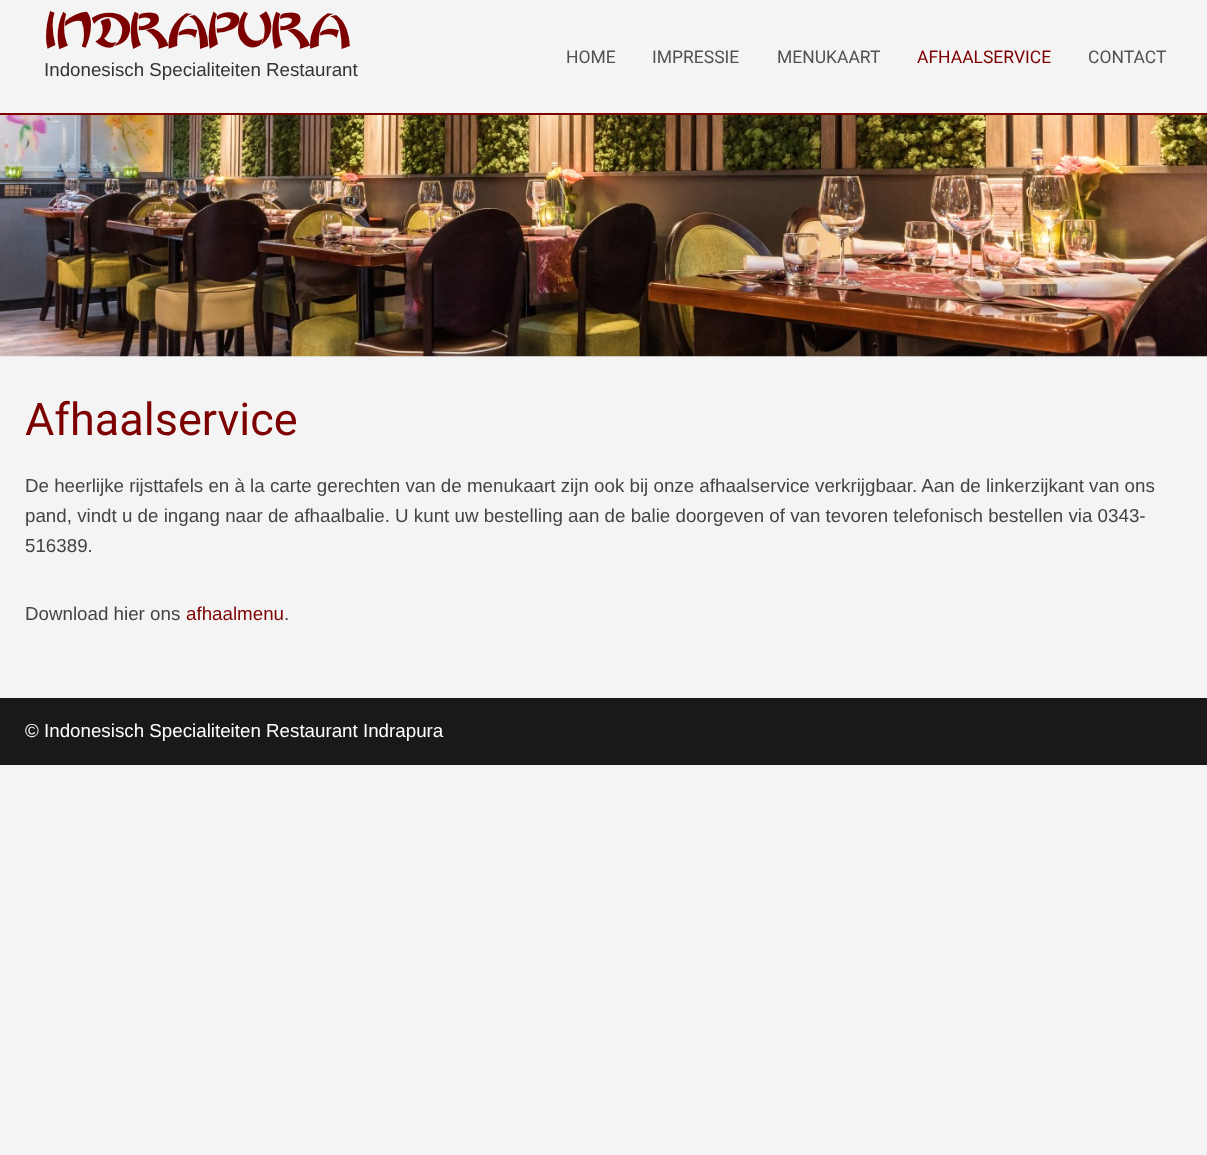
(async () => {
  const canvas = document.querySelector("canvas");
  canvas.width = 1207;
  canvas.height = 1155;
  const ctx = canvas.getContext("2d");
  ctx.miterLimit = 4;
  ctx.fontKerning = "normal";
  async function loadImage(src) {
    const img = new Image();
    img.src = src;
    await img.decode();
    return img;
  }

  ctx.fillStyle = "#f5f4f4";
  ctx.fillRect(0, 0, 1207, 1155);
  ctx.fillStyle = "#7d0000";
  ctx.fillRect(0, 113, 1207, 2);
  ctx.drawImage(await loadImage("img/1.png"), 0, 115, 1207, 242);
  ctx.fillStyle = "#1a191a";
  ctx.fillRect(0, 698, 1207, 67);
  ctx.font = "bold 40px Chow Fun";
  ctx.fillStyle = "#7d0000";
  ctx.fillText("INDRAPURA", 44, 46);
  ctx.font = "18.75px Liberation Sans";
  ctx.fillStyle = "#333333";
  ctx.fillText("Indonesisch Specialiteiten Restaurant", 44, 76);
  ctx.font = "17.5px Roboto";
  ctx.fillStyle = "#515151";
  for (const [text, x, y] of [
    ["HOME", 566, 63],
    ["IMPRESSIE", 652, 63],
    ["MENUKAART", 777, 63],
  ]) {
    ctx.fillText(text, x, y);
  }
  ctx.fillStyle = "#7d0000";
  ctx.fillText("AFHAALSERVICE", 917, 63);
  ctx.fillStyle = "#515151";
  ctx.fillText("CONTACT", 1088, 63);
  ctx.font = "45px Roboto";
  ctx.fillStyle = "#7d0000";
  ctx.fillText("Afhaalservice", 25, 435);
  ctx.font = "18.75px Liberation Sans";
  ctx.fillStyle = "#444444";
  for (const [text, x, y] of [
    ["De heerlijke rijsttafels en à la carte gerechten van de menukaart zijn ook bij onze afhaalservice verkrijgbaar. Aan de linkerzijkant van ons", 25, 492],
    ["pand, vindt u de ingang naar de afhaalbalie. U kunt uw bestelling aan de balie doorgeven of van tevoren telefonisch bestellen via 0343-", 25, 522],
    ["516389.", 25, 552],
    ["Download hier ons", 25, 620],
  ]) {
    ctx.fillText(text, x, y);
  }
  ctx.fillStyle = "#7d0000";
  ctx.fillText("afhaalmenu", 186, 620);
  ctx.fillStyle = "#444444";
  ctx.fillText(".", 284, 620);
  ctx.fillStyle = "#ffffff";
  ctx.fillText("© Indonesisch Specialiteiten Restaurant Indrapura", 25, 737);
})();
